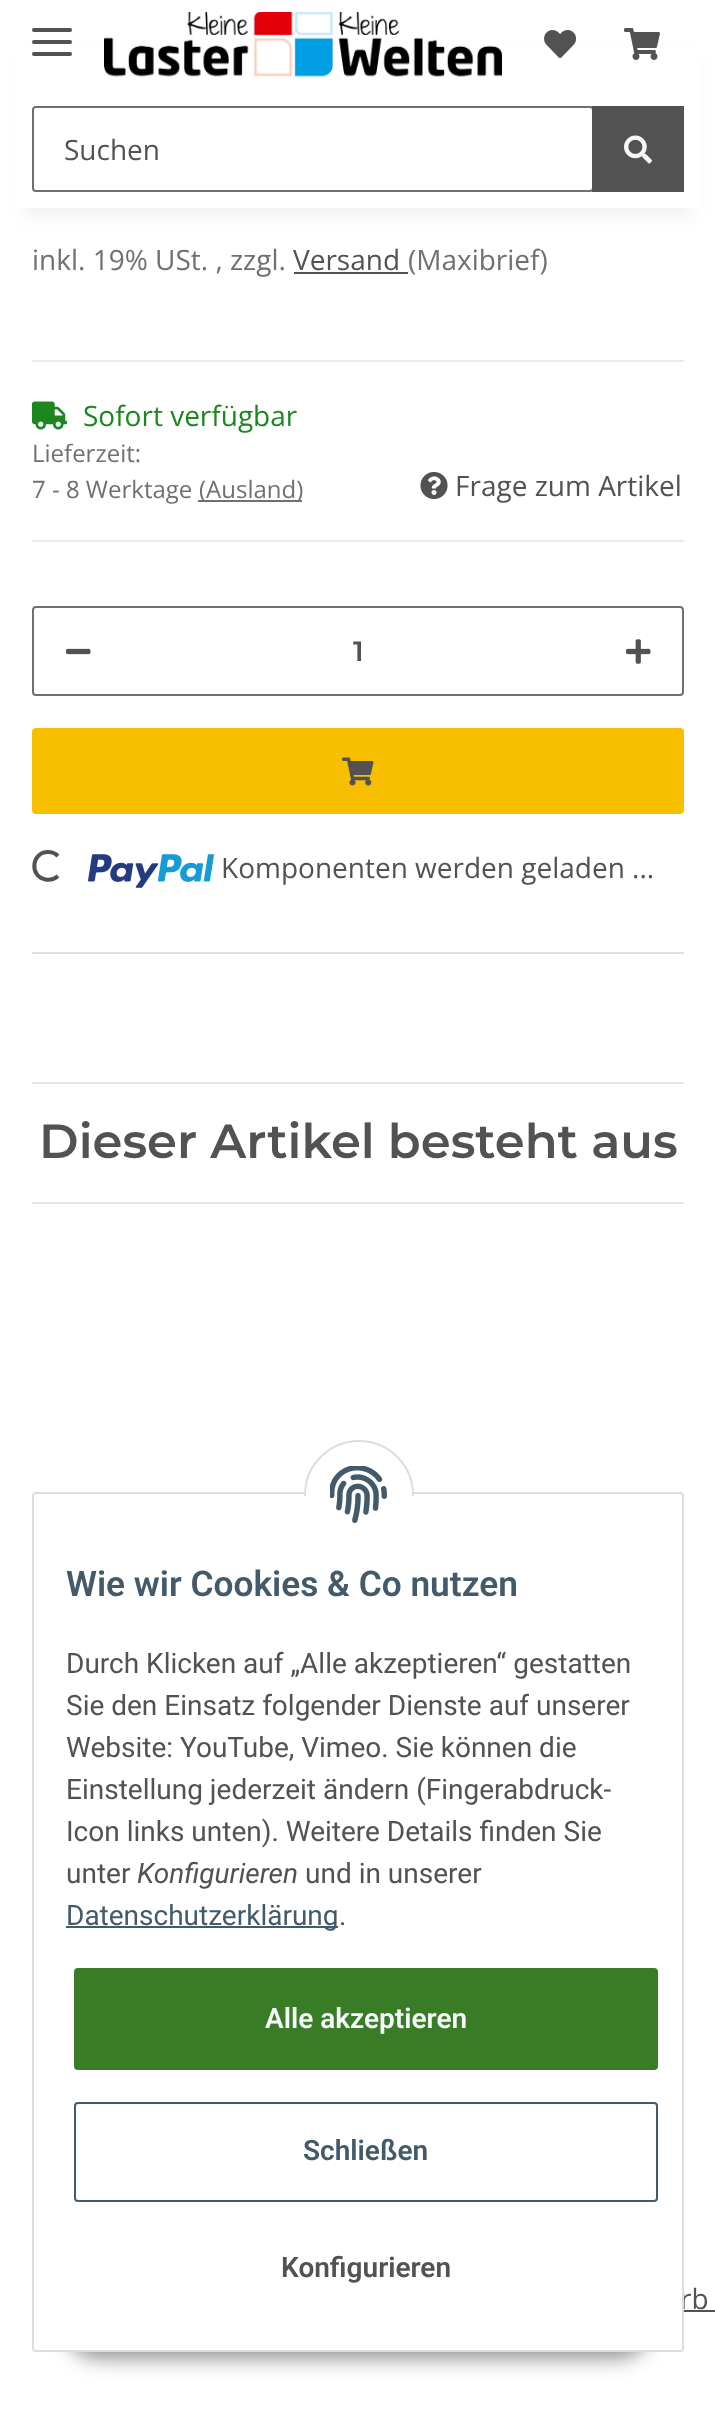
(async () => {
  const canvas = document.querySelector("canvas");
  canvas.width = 715;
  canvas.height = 2416;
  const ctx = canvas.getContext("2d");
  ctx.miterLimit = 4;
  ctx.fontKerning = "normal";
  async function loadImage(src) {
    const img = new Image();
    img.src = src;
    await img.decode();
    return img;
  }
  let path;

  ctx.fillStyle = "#ffffff";
  ctx.fillRect(0, 0, 715, 2416);
  ctx.fillStyle = "rgba(0, 0, 0, 0.06)";
  ctx.filter = "blur(9px)";
  ctx.beginPath();
  ctx.rect(24, 56, 668, 160);
  ctx.fill();
  ctx.filter = "none";
  ctx.fillStyle = "#ffffff";
  ctx.fillRect(15, 47, 686, 161);
  ctx.fillStyle = "#525252";
  ctx.beginPath();
  ctx.roundRect(32, 40, 40, 4, 2);
  ctx.fill();
  ctx.beginPath();
  ctx.roundRect(32, 28, 40, 4, 2);
  ctx.fill();
  ctx.beginPath();
  ctx.roundRect(32, 52, 40, 4, 2);
  ctx.fill();
  ctx.drawImage(await loadImage("img/1.png"), 104, 12, 398, 65);
  ctx.drawImage(await loadImage("img/2.png"), 544, 30, 33, 28);
  ctx.drawImage(await loadImage("img/3.png"), 624, 28, 36, 32);
  ctx.beginPath();
  ctx.roundRect(33, 107, 560, 84, 3);
  ctx.strokeStyle = "#707070";
  ctx.lineWidth = 2;
  ctx.stroke();
  ctx.fillRect(592, 106, 92, 86);
  ctx.drawImage(await loadImage("img/4.png"), 624, 135, 28, 29);
  for (const [x, y, w, h, color] of [
    [294, 272, 114, 2, "#525252"],
    [32, 360, 652, 2, "#ebebeb"],
    [32, 540, 652, 2, "#ebebeb"],
  ]) {
    ctx.fillStyle = color;
    ctx.fillRect(x, y, w, h);
  }
  ctx.drawImage(await loadImage("img/5.png"), 32, 401, 35, 29);
  ctx.fillStyle = "#707070";
  ctx.fillRect(198, 500, 104, 2);
  ctx.drawImage(await loadImage("img/6.png"), 420, 472, 28, 27);
  ctx.beginPath();
  ctx.roundRect(33, 607, 650, 88, 3);
  ctx.stroke();
  ctx.drawImage(await loadImage("img/7.png"), 66, 648, 25, 7);
  ctx.drawImage(await loadImage("img/8.png"), 626, 639, 25, 25);
  ctx.fillStyle = "#f8bf00";
  ctx.beginPath();
  ctx.roundRect(33, 729, 650, 84, 3);
  ctx.fill();
  ctx.strokeStyle = "#f8bf00";
  ctx.stroke();
  ctx.drawImage(await loadImage("img/9.png"), 342, 757, 32, 29);
  path = new Path2D("M58 876C54.5 879 50 880.5 45.5 879.5C29 876.5 31.5 852 48 852C51.5 852 55.5 853.5 58 856");
  ctx.strokeStyle = "#525252";
  ctx.lineWidth = 4;
  ctx.stroke(path);
  ctx.drawImage(await loadImage("img/10.png"), 88, 854, 126, 34);
  for (const [x, y, w, h, color] of [
    [32, 952, 652, 2, "#dee2e6"],
    [32, 1082, 652, 2, "#e6e6e6"],
    [32, 1202, 652, 2, "#e6e6e6"],
    [684, 2310, 31, 2, "#525252"],
  ]) {
    ctx.fillStyle = color;
    ctx.fillRect(x, y, w, h);
  }
  ctx.fillStyle = "rgba(0, 0, 0, 0.45)";
  ctx.filter = "blur(10px)";
  ctx.beginPath();
  ctx.roundRect(66, 2294, 584, 64, 32);
  ctx.fill();
  ctx.filter = "none";
  ctx.font = "28px Open Sans";
  ctx.fillStyle = "#525252";
  ctx.fillText("Suchen", 64, 160);
  ctx.fillStyle = "#707070";
  ctx.fillText("inkl. 19% USt. , zzgl.", 32, 270);
  ctx.fillStyle = "#525252";
  ctx.fillText("Versand", 293, 270);
  ctx.fillStyle = "#707070";
  ctx.fillText("(Maxibrief)", 408, 270);
  ctx.fillStyle = "#1c871e";
  ctx.fillText("Sofort verfügbar", 83, 426);
  ctx.font = "24px Open Sans";
  ctx.fillStyle = "#707070";
  for (const [text, x, y] of [
    ["Lieferzeit:", 32, 462],
    ["7 - 8 Werktage", 32, 498],
    ["(Ausland)", 199, 498],
  ]) {
    ctx.fillText(text, x, y);
  }
  ctx.font = "28px Open Sans";
  ctx.fillStyle = "#525252";
  ctx.fillText("Frage zum Artikel", 455, 496);
  ctx.font = "600 28px Montserrat";
  ctx.fillText("1", 353, 661);
  ctx.font = "28px Open Sans";
  ctx.fillText("Komponenten werden geladen ...", 221, 878);
  ctx.font = "600 48px Montserrat";
  ctx.fillText("Dieser Artikel besteht aus", 39, 1158);
  ctx.font = "28px Open Sans";
  ctx.fillText("rb", 680, 2309);
  ctx.fillStyle = "#ffffff";
  ctx.beginPath();
  ctx.roundRect(33, 1493, 650, 858, 3);
  ctx.fill();
  ctx.strokeStyle = "#dddddd";
  ctx.lineWidth = 2;
  ctx.stroke();
  ctx.beginPath();
  ctx.arc(359, 1495, 54, 0, Math.PI * 2);
  ctx.fill();
  ctx.stroke();
  ctx.fillRect(304, 1496, 110, 54);
  ctx.drawImage(await loadImage("img/11.png"), 330, 1466, 57, 57);
  ctx.font = "600 35.25px Roboto";
  ctx.fillStyle = "#435a6b";
  ctx.fillText("Wie wir Cookies & Co nutzen", 66, 1596);
  ctx.font = "28px Roboto";
  ctx.fillStyle = "#525252";
  for (const [text, x, y] of [
    ["Durch Klicken auf „Alle akzeptieren“ gestatten", 66, 1673],
    ["Sie den Einsatz folgender Dienste auf unserer", 66, 1715],
    ["Website: YouTube, Vimeo. Sie können die", 66, 1757],
    ["Einstellung jederzeit ändern (Fingerabdruck-", 66, 1799],
    ["Icon links unten). Weitere Details finden Sie", 66, 1841],
    ["unter", 66, 1883],
  ]) {
    ctx.fillText(text, x, y);
  }
  ctx.font = "italic 28px Roboto";
  ctx.fillText("Konfigurieren", 137, 1883);
  ctx.font = "28px Roboto";
  ctx.fillText("und in unserer", 305, 1883);
  ctx.fillStyle = "#435a6b";
  ctx.fillRect(66, 1926, 272, 2);
  ctx.fillText("Datenschutzerklärung", 66, 1925);
  ctx.fillStyle = "#525252";
  ctx.fillText(".", 339, 1925);
  ctx.fillStyle = "#397c26";
  ctx.beginPath();
  ctx.roundRect(75, 1969, 582, 100, 3);
  ctx.fill();
  ctx.strokeStyle = "#397c26";
  ctx.stroke();
  ctx.font = "600 28px Roboto";
  ctx.fillStyle = "#f5f7fa";
  ctx.fillText("Alle akzeptieren", 265, 2028);
  ctx.beginPath();
  ctx.roundRect(75, 2103, 582, 98, 3);
  ctx.strokeStyle = "#435a6b";
  ctx.stroke();
  ctx.fillStyle = "#435a6b";
  ctx.fillText("Schließen", 303, 2160);
  ctx.fillStyle = "#525252";
  ctx.fillText("Konfigurieren", 281, 2277);
})();
